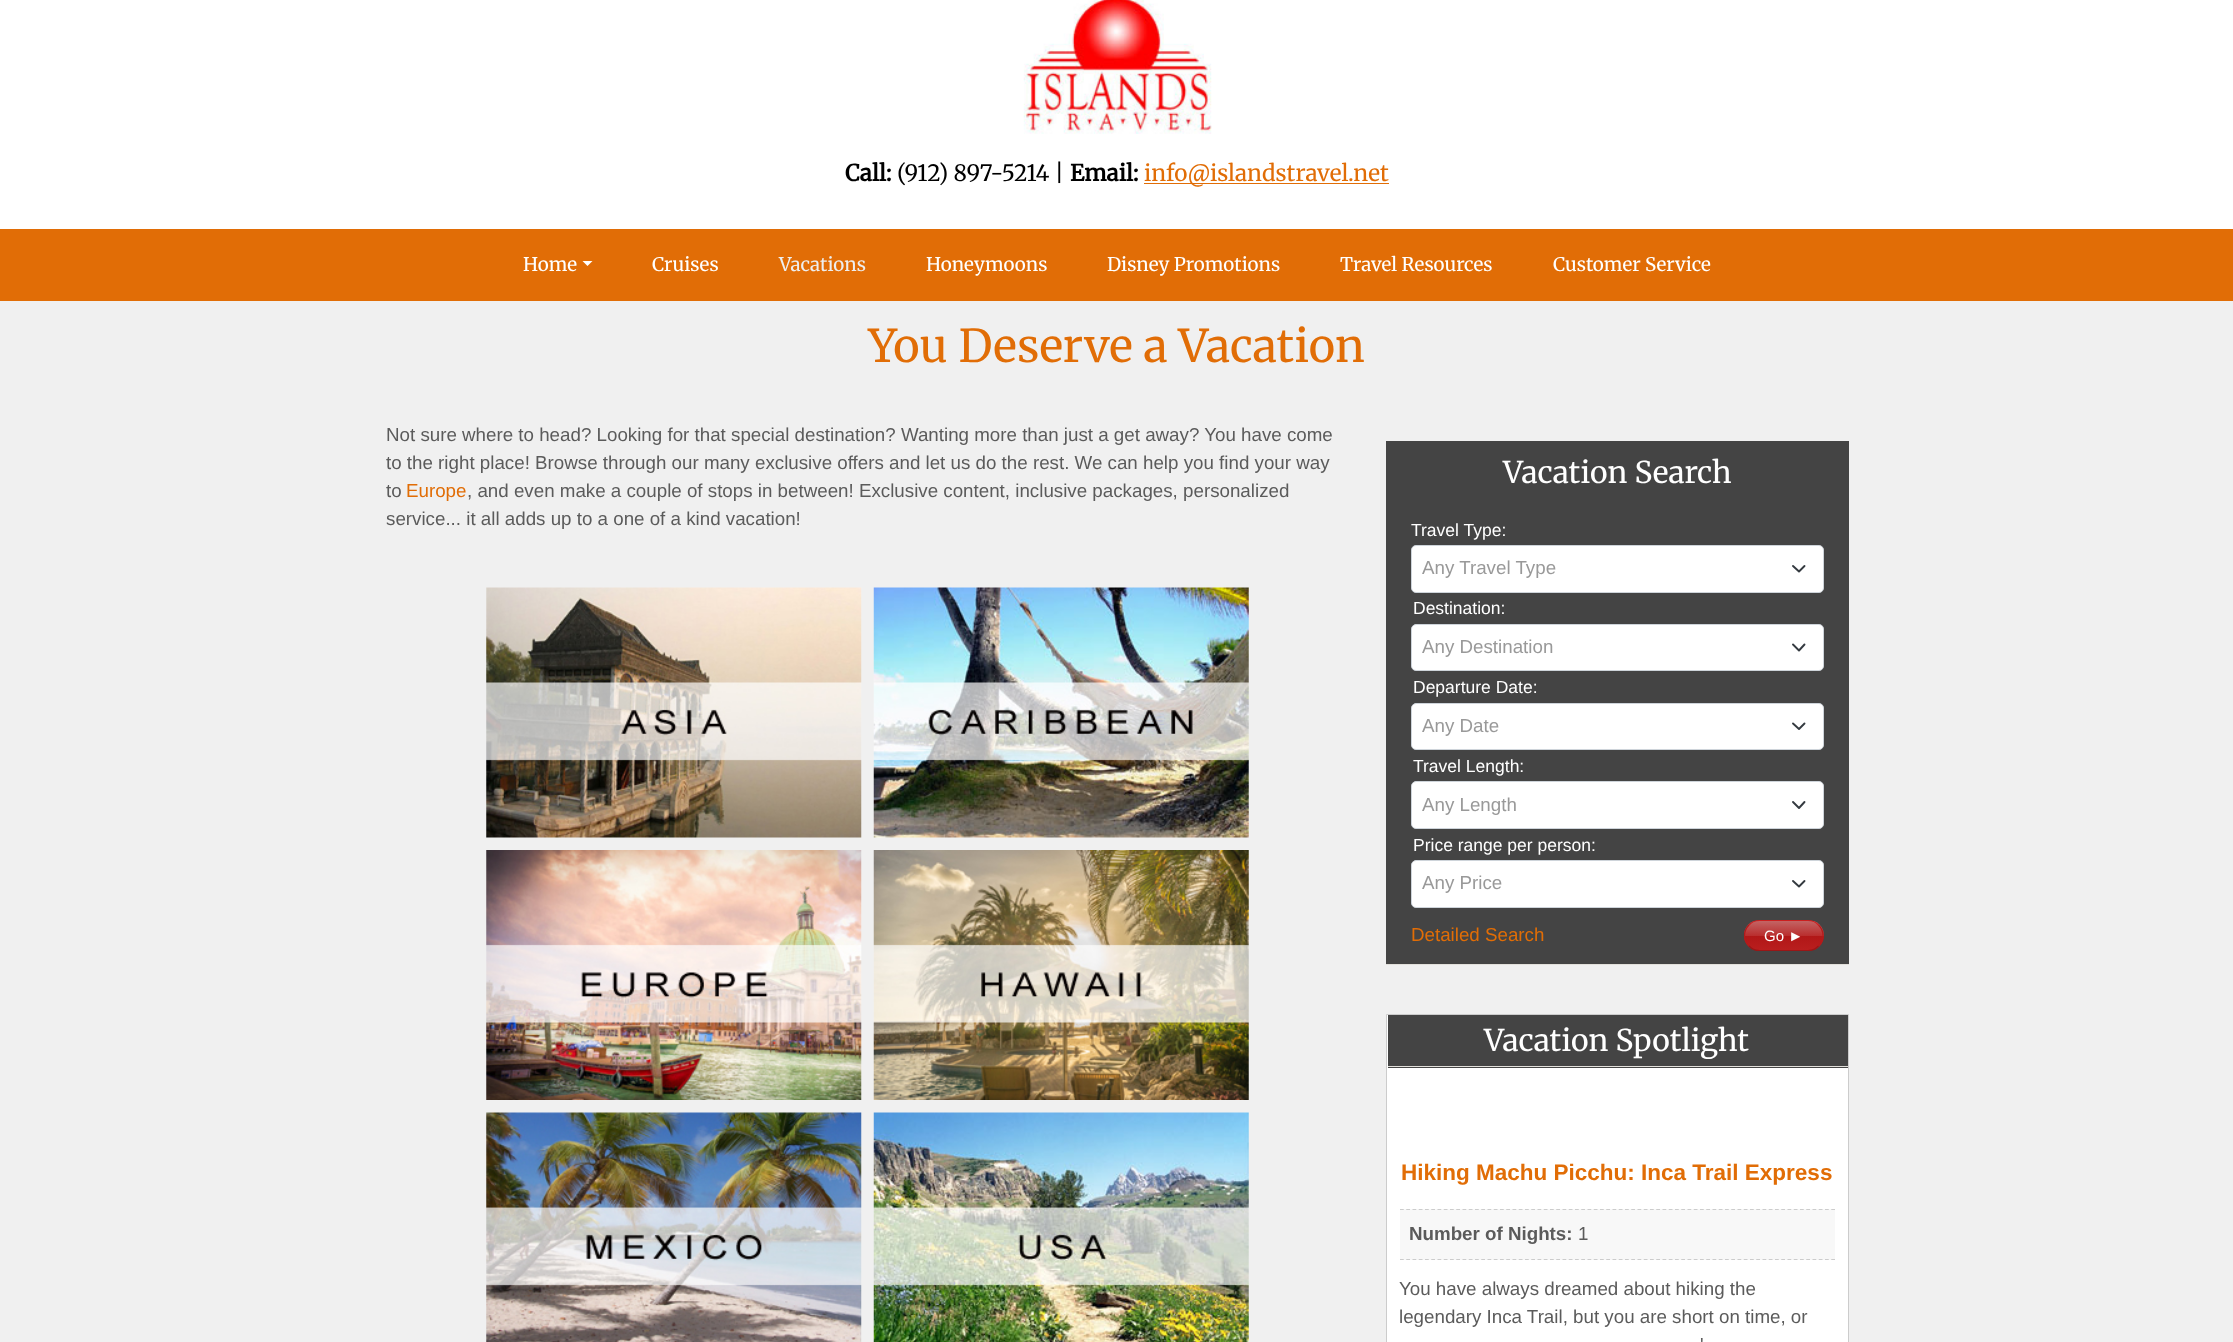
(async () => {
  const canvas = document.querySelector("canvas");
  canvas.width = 2233;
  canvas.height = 1342;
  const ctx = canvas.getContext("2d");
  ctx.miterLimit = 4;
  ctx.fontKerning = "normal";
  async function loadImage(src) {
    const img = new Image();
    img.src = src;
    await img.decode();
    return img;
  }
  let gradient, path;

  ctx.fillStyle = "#f0f0f0";
  ctx.fillRect(0, 0, 2233, 1342);
  ctx.fillStyle = "#ffffff";
  ctx.fillRect(0, 0, 2233, 229);
  ctx.drawImage(await loadImage("img/1.png"), 1023, 0, 189, 134);
  ctx.fillStyle = "#e16d06";
  ctx.fillRect(1144, 183, 245, 1);
  ctx.fillRect(0, 229, 2233, 72);
  ctx.fillStyle = "#ffffff";
  path = new Path2D("M582.5 261H592.5L587.5 266Z");
  ctx.fill(path);
  ctx.drawImage(await loadImage("img/2.png"), 486, 587, 376, 251);
  ctx.drawImage(await loadImage("img/3.png"), 873, 587, 376, 251);
  ctx.drawImage(await loadImage("img/4.png"), 486, 850, 376, 250);
  ctx.drawImage(await loadImage("img/5.png"), 873, 850, 376, 250);
  ctx.drawImage(await loadImage("img/6.png"), 486, 1112, 376, 230);
  ctx.drawImage(await loadImage("img/7.png"), 873, 1112, 376, 230);
  ctx.fillStyle = "#444444";
  ctx.fillRect(1386, 441, 463, 523);
  ctx.fillStyle = "#e2e0db";
  ctx.fillRect(1386, 964, 463, 1);
  ctx.fillStyle = "#ffffff";
  ctx.beginPath();
  ctx.roundRect(1411.5, 545.5, 412, 47, 4.5);
  ctx.fill();
  ctx.strokeStyle = "#ced4da";
  ctx.stroke();
  path = new Path2D("M1793 566L1799 571.5L1804.5 566");
  ctx.strokeStyle = "#343a40";
  ctx.lineWidth = 1.9;
  ctx.lineCap = "round";
  ctx.lineJoin = "round";
  ctx.stroke(path);
  ctx.beginPath();
  ctx.roundRect(1411.5, 624.5, 412, 46, 4.5);
  ctx.fill();
  ctx.strokeStyle = "#ced4da";
  ctx.lineWidth = 1;
  ctx.lineJoin = "miter";
  ctx.stroke();
  path = new Path2D("M1793 644.5L1799 650.5L1804.5 644.5");
  ctx.strokeStyle = "#343a40";
  ctx.lineWidth = 1.9;
  ctx.lineJoin = "round";
  ctx.stroke(path);
  ctx.beginPath();
  ctx.roundRect(1411.5, 703.5, 412, 46, 4.5);
  ctx.fill();
  ctx.strokeStyle = "#ced4da";
  ctx.lineWidth = 1;
  ctx.lineJoin = "miter";
  ctx.stroke();
  path = new Path2D("M1793 723.5L1799 729L1804.5 723.5");
  ctx.strokeStyle = "#343a40";
  ctx.lineWidth = 1.9;
  ctx.lineJoin = "round";
  ctx.stroke(path);
  ctx.beginPath();
  ctx.roundRect(1411.5, 781.5, 412, 47, 4.5);
  ctx.fill();
  ctx.strokeStyle = "#ced4da";
  ctx.lineWidth = 1;
  ctx.lineJoin = "miter";
  ctx.stroke();
  path = new Path2D("M1793 802L1799 808L1804.5 802");
  ctx.strokeStyle = "#343a40";
  ctx.lineWidth = 1.9;
  ctx.lineJoin = "round";
  ctx.stroke(path);
  ctx.beginPath();
  ctx.roundRect(1411.5, 860.5, 412, 47, 4.5);
  ctx.fill();
  ctx.strokeStyle = "#ced4da";
  ctx.lineWidth = 1;
  ctx.lineJoin = "miter";
  ctx.stroke();
  path = new Path2D("M1793 881L1799 886.5L1804.5 881");
  ctx.strokeStyle = "#343a40";
  ctx.lineWidth = 1.9;
  ctx.lineJoin = "round";
  ctx.stroke(path);
  ctx.save();
  ctx.beginPath();
  ctx.roundRect(1744, 920, 80, 31, 15.5);
  ctx.clip();
  gradient = ctx.createLinearGradient(1784, 950, 1784, 921);
  gradient.addColorStop(0, "#b91e1e");
  gradient.addColorStop(0.5, "#b11717");
  gradient.addColorStop(0.5, "#ba2f2f");
  gradient.addColorStop(1, "#c36464");
  ctx.fillStyle = gradient;
  ctx.fillRect(1744, 921, 80, 29);
  ctx.restore();
  path = new Path2D("M1749 925C1751.5 922 1755.5 920.5 1759.5 920.5H1808C1812 920.5 1816 922 1818.5 925");
  ctx.strokeStyle = "#cc1f1f";
  ctx.lineWidth = 1.2;
  ctx.lineCap = "butt";
  ctx.lineJoin = "miter";
  ctx.stroke(path);
  path = new Path2D("M1818.5 925C1824.5 931 1824.5 940.5 1818.5 946");
  ctx.strokeStyle = "#b31b1b";
  ctx.stroke(path);
  path = new Path2D("M1818.5 946C1816 949 1812 950.5 1808 950.5H1759.5C1755.5 950.5 1751.5 949 1749 946");
  ctx.strokeStyle = "#991717";
  ctx.stroke(path);
  path = new Path2D("M1749 946C1743 940.5 1743 931 1749 925");
  ctx.strokeStyle = "#b31b1b";
  ctx.stroke(path);
  ctx.beginPath();
  ctx.rect(1386.5, 1014.5, 462, 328);
  ctx.fill();
  ctx.strokeStyle = "#cccccc";
  ctx.lineWidth = 1;
  ctx.stroke();
  for (const [x, y, w, h, color] of [
    [1388, 1015, 460, 53, "#444444"],
    [1388, 1066, 460, 1, "#e2e0db"],
    [1400, 1209, 435, 51, "#f8f8f8"],
  ]) {
    ctx.fillStyle = color;
    ctx.fillRect(x, y, w, h);
  }
  path = new Path2D("M1400 1209.5H1835");
  ctx.lineWidth = 1.2;
  ctx.setLineDash([3.75, 2.5]);
  ctx.stroke(path);
  path = new Path2D("M1400 1259.5H1835");
  ctx.stroke(path);
  ctx.font = "bold 22.5px Merriweather";
  ctx.fillStyle = "#000000";
  ctx.fillText("Call:", 845, 181);
  ctx.font = "300 22.5px Merriweather";
  ctx.fillText("(912) 897-5214 |", 897, 181);
  ctx.font = "bold 22.5px Merriweather";
  ctx.fillText("Email:", 1070, 181);
  ctx.font = "300 22.5px Merriweather";
  ctx.fillStyle = "#e16d06";
  ctx.fillText("info@islandstravel.net", 1144, 181);
  ctx.font = "300 18.75px Merriweather";
  ctx.fillStyle = "#ffffff";
  ctx.fillText("Home", 523, 271);
  ctx.fillText("Cruises", 652, 271);
  ctx.fillStyle = "#eeeeee";
  ctx.fillText("Vacations", 779, 271);
  ctx.fillStyle = "#ffffff";
  for (const [text, x, y] of [
    ["Honeymoons", 926, 271],
    ["Disney Promotions", 1107, 271],
    ["Travel Resources", 1340, 271],
    ["Customer Service", 1553, 271],
  ]) {
    ctx.fillText(text, x, y);
  }
  ctx.font = "300 45px Merriweather";
  ctx.fillStyle = "#e16d06";
  ctx.fillText("You Deserve a Vacation", 868, 362);
  ctx.font = "18.75px Liberation Sans";
  ctx.fillStyle = "#5b5b5b";
  for (const [text, x, y] of [
    ["Not sure where to head? Looking for that special destination? Wanting more than just a get away? You have come", 386, 441],
    ["to the right place! Browse through our many exclusive offers and let us do the rest. We can help you find your way", 386, 469],
    ["to", 386, 497],
  ]) {
    ctx.fillText(text, x, y);
  }
  ctx.fillStyle = "#e16d06";
  ctx.fillText("Europe", 406, 497);
  ctx.fillStyle = "#5b5b5b";
  ctx.fillText(", and even make a couple of stops in between! Exclusive content, inclusive packages, personalized", 467, 497);
  ctx.fillText("service... it all adds up to a one of a kind vacation!", 386, 525);
  ctx.font = "300 30px Merriweather";
  ctx.fillStyle = "#ffffff";
  ctx.fillText("Vacation Search", 1503, 483);
  ctx.font = "17.5px Liberation Sans";
  ctx.fillText("Travel Type:", 1411, 536);
  ctx.font = "18.75px Liberation Sans";
  ctx.fillStyle = "#999999";
  ctx.fillText("Any Travel Type", 1422, 574);
  ctx.font = "17.5px Liberation Sans";
  ctx.fillStyle = "#ffffff";
  ctx.fillText("Destination:", 1413, 614);
  ctx.font = "18.75px Liberation Sans";
  ctx.fillStyle = "#999999";
  ctx.fillText("Any Destination", 1422, 653);
  ctx.font = "17.5px Liberation Sans";
  ctx.fillStyle = "#ffffff";
  ctx.fillText("Departure Date:", 1413, 693);
  ctx.font = "18.75px Liberation Sans";
  ctx.fillStyle = "#999999";
  ctx.fillText("Any Date", 1422, 732);
  ctx.font = "17.5px Liberation Sans";
  ctx.fillStyle = "#ffffff";
  ctx.fillText("Travel Length:", 1413, 772);
  ctx.font = "18.75px Liberation Sans";
  ctx.fillStyle = "#999999";
  ctx.fillText("Any Length", 1422, 811);
  ctx.font = "17.5px Liberation Sans";
  ctx.fillStyle = "#ffffff";
  ctx.fillText("Price range per person:", 1413, 851);
  ctx.font = "18.75px Liberation Sans";
  ctx.fillStyle = "#999999";
  ctx.fillText("Any Price", 1422, 889);
  ctx.fillStyle = "#e16d06";
  ctx.fillText("Detailed Search", 1411, 941);
  ctx.font = "15px Liberation Sans";
  ctx.fillStyle = "#ffffff";
  ctx.fillText("Go ►", 1764, 941);
  ctx.font = "300 30px Merriweather";
  ctx.fillText("Vacation Spotlight", 1484, 1051);
  ctx.font = "bold 22.5px Liberation Sans";
  ctx.fillStyle = "#e16d06";
  ctx.fillText("Hiking Machu Picchu: Inca Trail Express", 1401, 1180);
  ctx.font = "bold 18.75px Liberation Sans";
  ctx.fillStyle = "#5b5b5b";
  ctx.fillText("Number of Nights:", 1409, 1240);
  ctx.font = "18.75px Liberation Sans";
  for (const [text, x, y] of [
    ["1", 1578, 1240],
    ["You have always dreamed about hiking the", 1399, 1295],
    ["legendary Inca Trail, but you are short on time, or", 1399, 1323],
    ["'", 1700, 1351],
  ]) {
    ctx.fillText(text, x, y);
  }
})();
